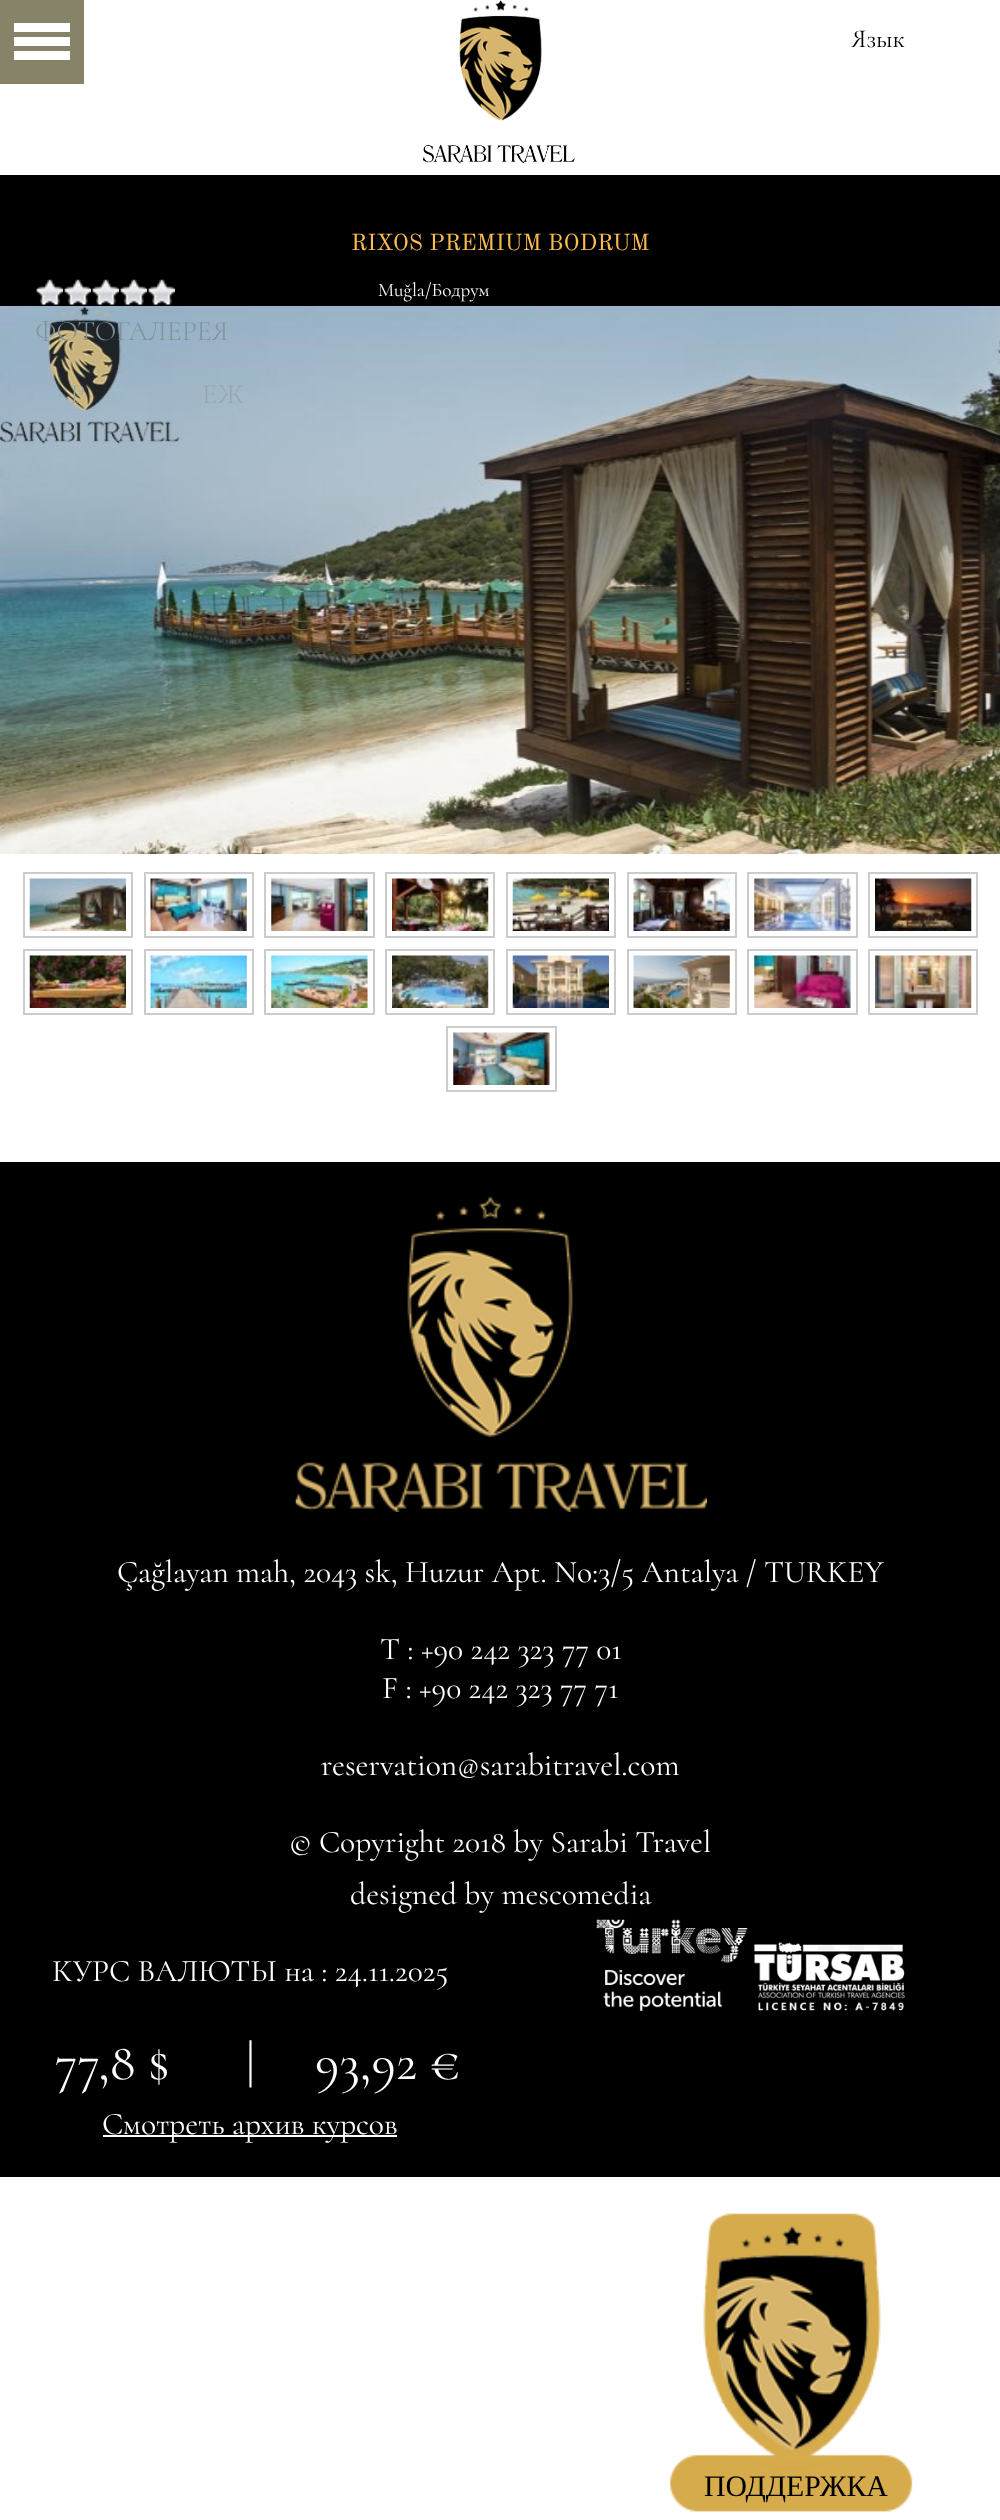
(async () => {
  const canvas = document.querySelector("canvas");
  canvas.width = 1000;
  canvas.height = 2520;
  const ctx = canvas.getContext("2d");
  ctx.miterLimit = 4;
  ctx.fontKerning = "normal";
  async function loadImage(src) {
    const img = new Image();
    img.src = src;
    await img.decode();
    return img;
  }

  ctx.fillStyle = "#ffffff";
  ctx.fillRect(0, 0, 1000, 2520);
  ctx.drawImage(await loadImage("img/1.png"), 459, 0, 83, 121);
  ctx.drawImage(await loadImage("img/2.png"), 423, 144, 152, 20);
  ctx.fillStyle = "#000000";
  ctx.fillRect(0, 175, 1000, 131);
  ctx.drawImage(await loadImage("img/3.png"), 36, 279, 27, 27);
  ctx.drawImage(await loadImage("img/3.png"), 64, 279, 27, 27);
  ctx.drawImage(await loadImage("img/4.png"), 92, 279, 27, 27);
  ctx.drawImage(await loadImage("img/3.png"), 120, 279, 27, 27);
  ctx.drawImage(await loadImage("img/3.png"), 148, 279, 27, 27);
  ctx.drawImage(await loadImage("img/5.png"), 0, 306, 1000, 548);
  ctx.strokeStyle = "#cccccc";
  ctx.lineWidth = 2;
  ctx.strokeRect(24, 873, 108, 64);
  ctx.strokeRect(145, 873, 108, 64);
  ctx.strokeRect(265, 873, 109, 64);
  ctx.strokeRect(386, 873, 108, 64);
  ctx.strokeRect(507, 873, 108, 64);
  ctx.strokeRect(628, 873, 108, 64);
  ctx.strokeRect(748, 873, 109, 64);
  ctx.strokeRect(869, 873, 108, 64);
  ctx.drawImage(await loadImage("img/6.png"), 29, 878, 97, 53);
  ctx.drawImage(await loadImage("img/7.png"), 150, 878, 97, 53);
  ctx.drawImage(await loadImage("img/8.png"), 271, 878, 97, 53);
  ctx.drawImage(await loadImage("img/9.png"), 392, 878, 97, 53);
  ctx.drawImage(await loadImage("img/10.png"), 512, 878, 97, 53);
  ctx.drawImage(await loadImage("img/11.png"), 633, 878, 97, 53);
  ctx.drawImage(await loadImage("img/12.png"), 754, 878, 97, 53);
  ctx.drawImage(await loadImage("img/13.png"), 875, 878, 97, 53);
  ctx.strokeRect(24, 950, 108, 64);
  ctx.strokeRect(145, 950, 108, 64);
  ctx.strokeRect(265, 950, 109, 64);
  ctx.strokeRect(386, 950, 108, 64);
  ctx.strokeRect(507, 950, 108, 64);
  ctx.strokeRect(628, 950, 108, 64);
  ctx.strokeRect(748, 950, 109, 64);
  ctx.strokeRect(869, 950, 108, 64);
  ctx.drawImage(await loadImage("img/14.png"), 29, 955, 97, 53);
  ctx.drawImage(await loadImage("img/15.png"), 150, 955, 97, 53);
  ctx.drawImage(await loadImage("img/16.png"), 271, 955, 97, 53);
  ctx.drawImage(await loadImage("img/17.png"), 392, 955, 97, 53);
  ctx.drawImage(await loadImage("img/18.png"), 512, 955, 97, 53);
  ctx.drawImage(await loadImage("img/19.png"), 633, 955, 97, 53);
  ctx.drawImage(await loadImage("img/20.png"), 754, 955, 97, 53);
  ctx.drawImage(await loadImage("img/21.png"), 875, 955, 97, 53);
  ctx.strokeRect(447, 1027, 109, 64);
  ctx.drawImage(await loadImage("img/22.png"), 453, 1032, 97, 53);
  for (const [x, y, w, h, color] of [
    [0, 0, 84, 84, "#868368"],
    [14, 51, 56, 9, "#ffffff"],
    [14, 23, 56, 9, "#ffffff"],
    [14, 37, 56, 9, "#ffffff"],
    [0, 1162, 1000, 1015, "#000000"],
  ]) {
    ctx.fillStyle = color;
    ctx.fillRect(x, y, w, h);
  }
  ctx.drawImage(await loadImage("img/23.png"), 295, 1197, 412, 315);
  ctx.fillStyle = "#ffffff";
  ctx.fillRect(103, 2135, 294, 2);
  ctx.drawImage(await loadImage("img/24.png"), 596, 1919, 152, 92);
  ctx.drawImage(await loadImage("img/25.png"), 754, 1942, 151, 69);
  ctx.drawImage(await loadImage("img/26.png"), 669, 2213, 244, 299);
  ctx.font = "26px Cormorant";
  ctx.fillStyle = "#000000";
  ctx.fillText("Язык", 851, 47);
  ctx.font = "22.75px Old Standard TT";
  ctx.fillStyle = "#fabb51";
  ctx.fillText("RIXOS PREMIUM BODRUM", 351, 250);
  ctx.font = "19.25px Cormorant";
  ctx.fillStyle = "#ffffff";
  ctx.fillText("Muğla/Бодрум", 378, 296);
  ctx.font = "300 28px Cormorant";
  ctx.fillStyle = "#7f919b";
  ctx.fillText("ФОТОГАЛЕРЕЯ", 35, 340);
  ctx.fillStyle = "#96a5ae";
  ctx.fillText("Р", 70, 403);
  ctx.fillText("ЕЖ", 202, 403);
  ctx.font = "31.5px Cormorant";
  ctx.fillStyle = "#ffffff";
  for (const [text, x, y] of [
    ["Çağlayan mah, 2043 sk, Huzur Apt. No:3/5 Antalya / TURKEY", 117, 1582],
    ["T : +90 242 323 77 01", 380, 1659],
    ["F : +90 242 323 77 71", 382, 1698],
    ["reservation@sarabitravel.com", 321, 1775],
    ["© Copyright 2018 by Sarabi Travel", 289, 1852],
    ["designed by mescomedia", 350, 1904],
    ["КУРС ВАЛЮТЫ на : 24.11.2025", 52, 1981],
  ]) {
    ctx.fillText(text, x, y);
  }
  ctx.font = "52.5px Cormorant";
  for (const [text, x, y] of [
    ["77,8 $", 55, 2079],
    ["|", 246, 2079],
    ["93,92 €", 315, 2079],
  ]) {
    ctx.fillText(text, x, y);
  }
  ctx.font = "31.5px Cormorant";
  ctx.fillText("Смотреть архив курсов", 102, 2134);
  ctx.font = "29.75px Liberation Serif";
  ctx.fillStyle = "#000000";
  ctx.fillText("ПОДДЕРЖКА", 704, 2496);
})();
